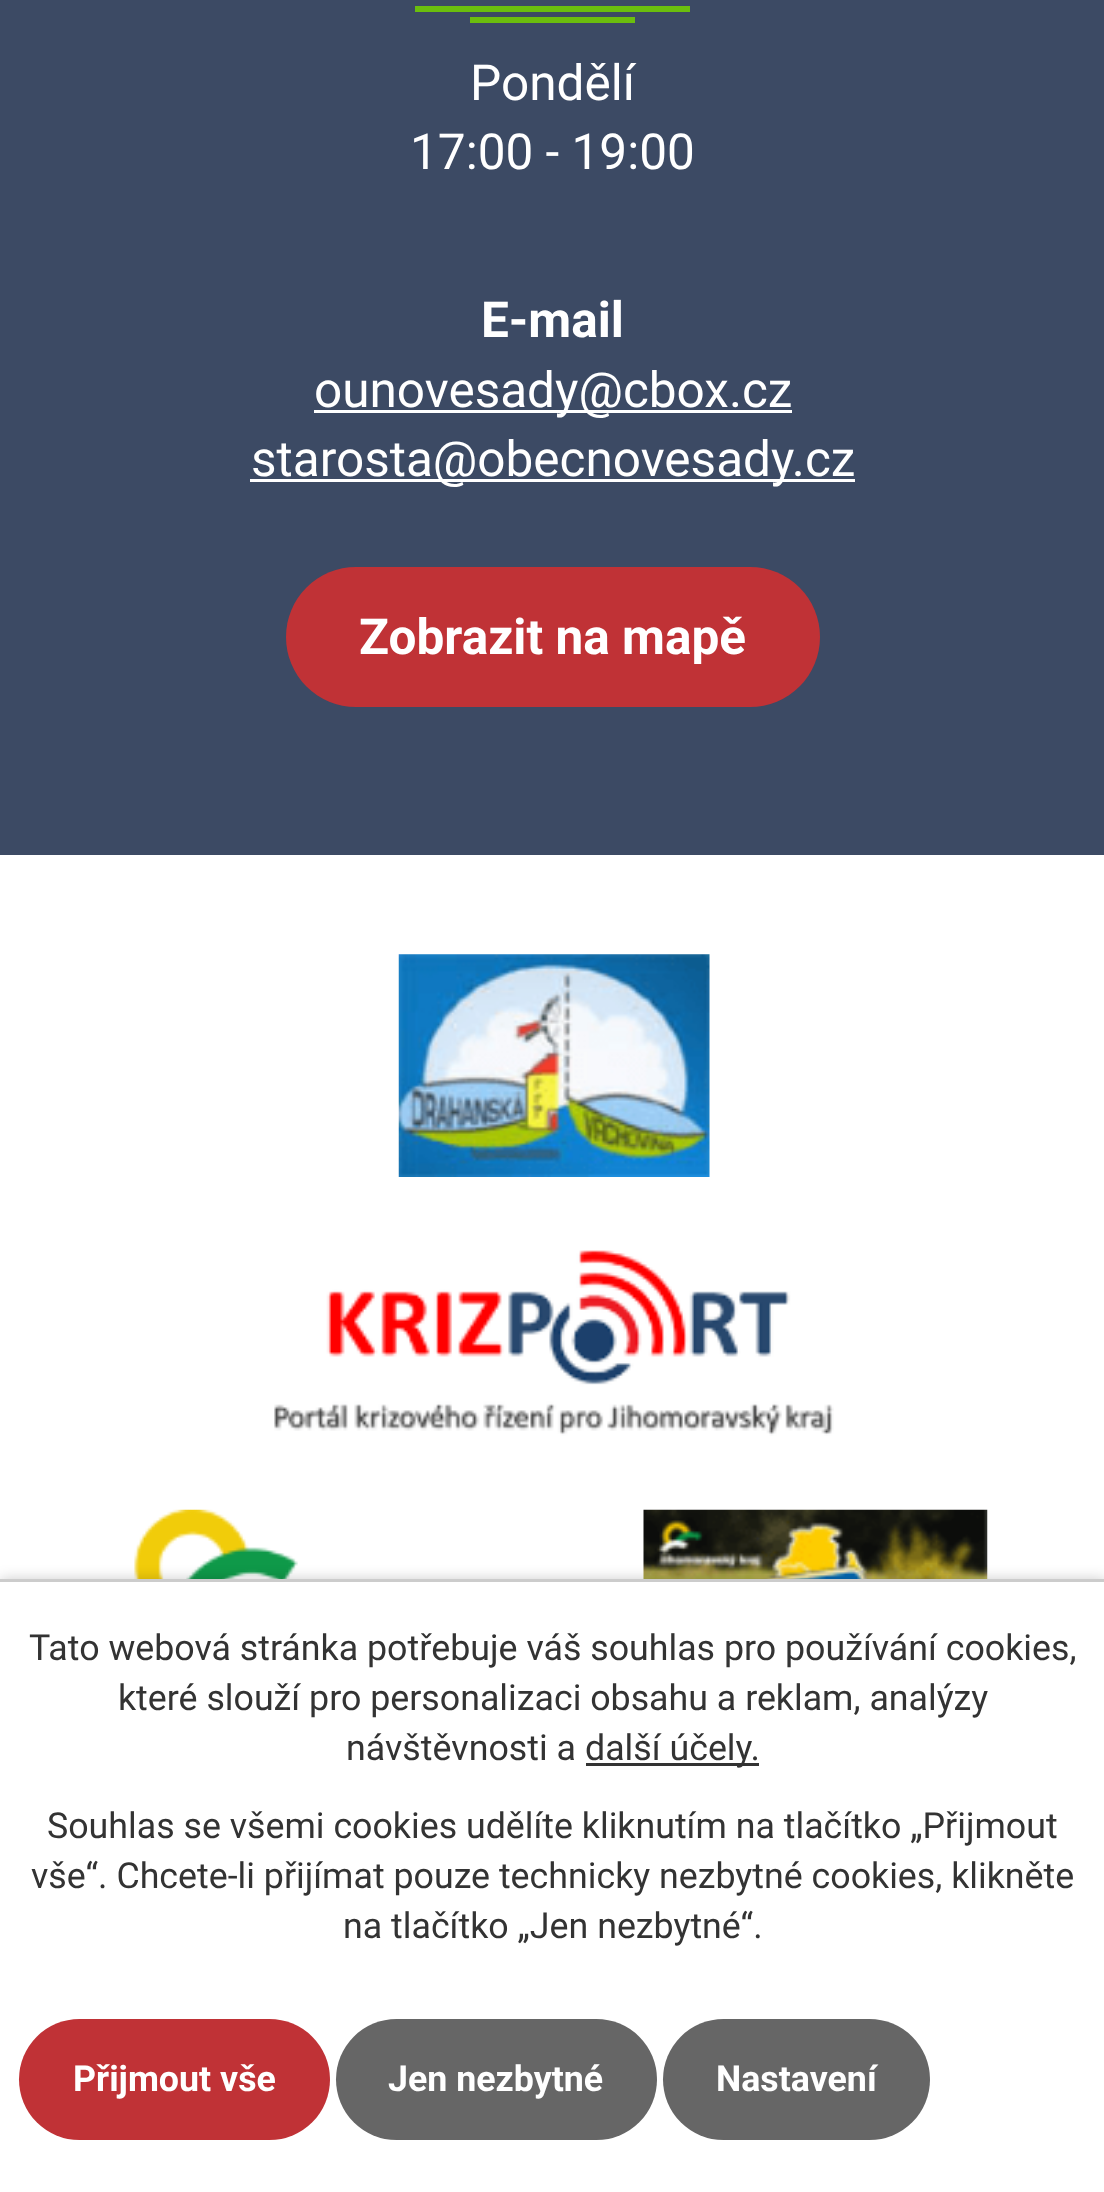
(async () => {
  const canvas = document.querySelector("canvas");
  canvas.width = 1104;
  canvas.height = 2192;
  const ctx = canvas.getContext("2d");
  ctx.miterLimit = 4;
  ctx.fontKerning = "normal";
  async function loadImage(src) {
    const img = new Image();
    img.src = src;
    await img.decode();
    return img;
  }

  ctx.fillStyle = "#ffffff";
  ctx.fillRect(0, 0, 1104, 2192);
  for (const [x, y, w, h, color] of [
    [0, 0, 1104, 855, "#3c4a64"],
    [415, 6, 275, 6, "#6bbe0e"],
    [470, 17, 165, 6, "#6bbe0e"],
    [314, 410, 478, 3, "#ffffff"],
    [250, 479, 605, 3, "#ffffff"],
  ]) {
    ctx.fillStyle = color;
    ctx.fillRect(x, y, w, h);
  }
  ctx.fillStyle = "#c03236";
  ctx.beginPath();
  ctx.roundRect(286, 567, 534, 140, 70);
  ctx.fill();
  ctx.drawImage(await loadImage("img/1.png"), 398, 954, 312, 223);
  ctx.drawImage(await loadImage("img/2.png"), 274, 1250, 560, 186);
  ctx.drawImage(await loadImage("img/3.png"), 134, 1509, 164, 70);
  ctx.drawImage(await loadImage("img/4.png"), 643, 1509, 345, 70);
  ctx.fillStyle = "rgba(0, 0, 0, 0.2)";
  ctx.filter = "blur(7px)";
  ctx.beginPath();
  ctx.rect(0, 1579, 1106, 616);
  ctx.fill();
  ctx.filter = "none";
  for (const [x, y, w, h, color] of [
    [0, 1582, 1104, 610, "#ffffff"],
    [0, 1579, 1104, 3, "#cccccc"],
    [586, 1763, 173, 3, "#333333"],
  ]) {
    ctx.fillStyle = color;
    ctx.fillRect(x, y, w, h);
  }
  ctx.fillStyle = "#c03236";
  ctx.beginPath();
  ctx.roundRect(19, 2019, 311, 121, 60.5);
  ctx.fill();
  ctx.fillStyle = "#666666";
  ctx.beginPath();
  ctx.roundRect(336, 2019, 321, 121, 60.5);
  ctx.fill();
  ctx.beginPath();
  ctx.roundRect(663, 2019, 267, 121, 60.5);
  ctx.fill();
  ctx.font = "49.5px Roboto";
  ctx.fillStyle = "#ffffff";
  ctx.fillText("Pondělí", 470, 100);
  ctx.fillText("17:00 - 19:00", 410, 169);
  ctx.font = "bold 49.5px Roboto";
  ctx.fillText("E-mail", 481, 337);
  ctx.font = "49.5px Roboto";
  ctx.fillText("ounovesady@cbox.cz", 314, 407);
  ctx.fillText("starosta@obecnovesady.cz", 251, 476);
  ctx.font = "bold 49.5px Roboto";
  ctx.fillText("Zobrazit na mapě", 359, 654);
  ctx.font = "35.75px Roboto";
  ctx.fillStyle = "#333333";
  for (const [text, x, y] of [
    ["Tato webová stránka potřebuje váš souhlas pro používání cookies,", 29, 1660],
    ["které slouží pro personalizaci obsahu a reklam, analýzy", 118, 1710],
    ["návštěvnosti a", 346, 1760],
    ["další účely.", 585, 1760],
    ["Souhlas se všemi cookies udělíte kliknutím na tlačítko „Přijmout", 47, 1838],
    ["vše“. Chcete-li přijímat pouze technicky nezbytné cookies, klikněte", 31, 1888],
    ["na tlačítko „Jen nezbytné“.", 343, 1938],
  ]) {
    ctx.fillText(text, x, y);
  }
  ctx.font = "bold 35.75px Roboto";
  ctx.fillStyle = "#ffffff";
  for (const [text, x, y] of [
    ["Přijmout vše", 73, 2091],
    ["Jen nezbytné", 388, 2091],
    ["Nastavení", 716, 2091],
  ]) {
    ctx.fillText(text, x, y);
  }
})();
